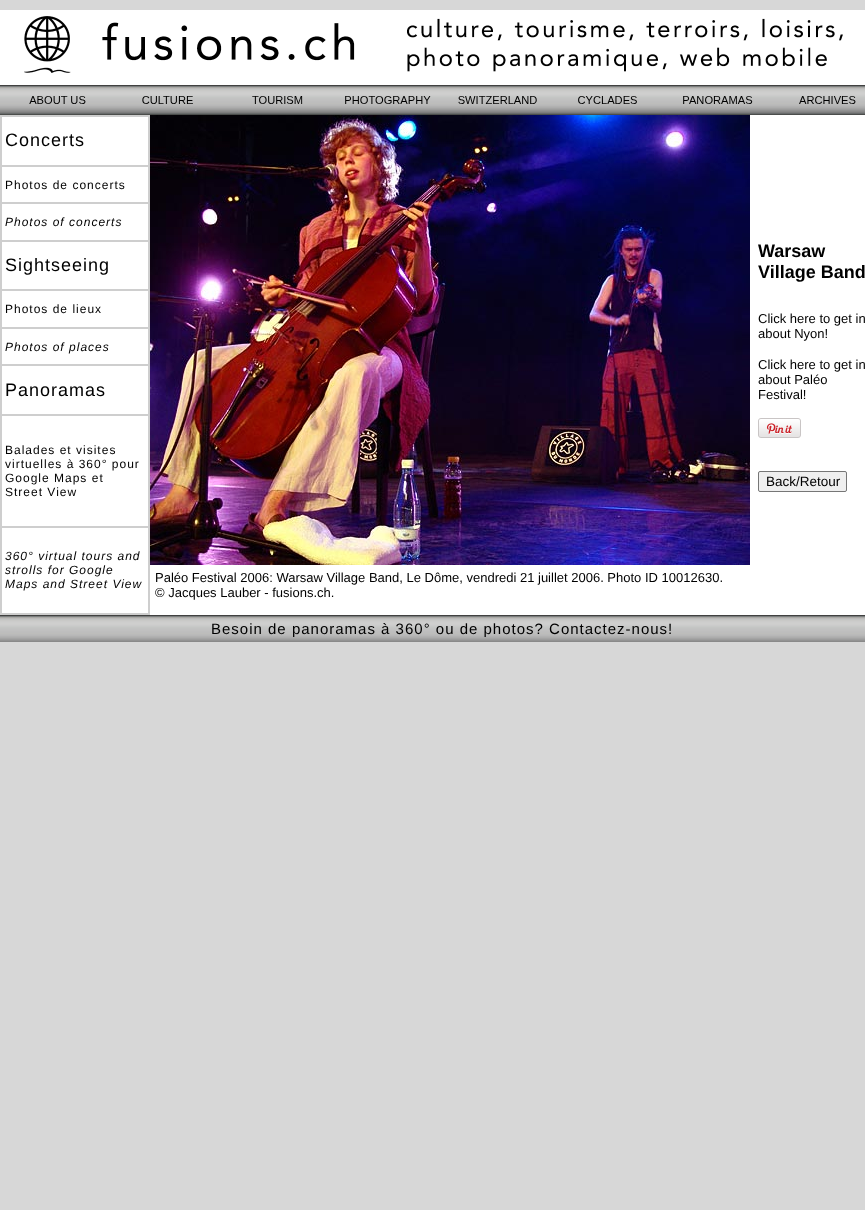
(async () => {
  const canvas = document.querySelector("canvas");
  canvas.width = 865;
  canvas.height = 1210;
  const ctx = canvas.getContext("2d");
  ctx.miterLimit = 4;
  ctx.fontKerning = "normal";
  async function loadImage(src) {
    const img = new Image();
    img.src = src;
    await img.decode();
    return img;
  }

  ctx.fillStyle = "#d7d7d7";
  ctx.fillRect(0, 0, 865, 1210);
  ctx.fillStyle = "#ffffff";
  ctx.fillRect(0, 10, 865, 605);
  ctx.drawImage(await loadImage("img/1.png"), 24, 16, 819, 57);
  ctx.drawImage(await loadImage("img/2.png"), 0, 85, 865, 30);
  for (const [x, y, w, h, color] of [
    [0, 115, 150, 500, "#cecece"],
    [2, 117, 146, 48, "#ffffff"],
    [2, 167, 146, 35, "#ffffff"],
    [2, 204, 146, 36, "#ffffff"],
    [2, 242, 146, 47, "#ffffff"],
    [2, 291, 146, 36, "#ffffff"],
    [2, 329, 146, 35, "#ffffff"],
    [2, 366, 146, 48, "#ffffff"],
    [2, 416, 146, 110, "#ffffff"],
    [2, 528, 146, 85, "#ffffff"],
  ]) {
    ctx.fillStyle = color;
    ctx.fillRect(x, y, w, h);
  }
  ctx.drawImage(await loadImage("img/3.png"), 758, 418, 43, 20);
  ctx.fillStyle = "#efefef";
  ctx.beginPath();
  ctx.roundRect(758.5, 471.5, 88, 20, 1.5);
  ctx.fill();
  ctx.strokeStyle = "#767676";
  ctx.stroke();
  ctx.drawImage(await loadImage("img/4.png"), 150, 115, 600, 450);
  ctx.drawImage(await loadImage("img/5.png"), 0, 615, 865, 27);
  ctx.letterSpacing = "1px";
  ctx.font = "18px Liberation Sans";
  ctx.fillStyle = "#000000";
  ctx.fillText("Concerts", 5, 146);
  ctx.font = "12px Liberation Sans";
  ctx.fillText("Photos de concerts", 5, 189);
  ctx.font = "italic 12px Liberation Sans";
  ctx.fillText("Photos of concerts", 5, 226);
  ctx.font = "18px Liberation Sans";
  ctx.fillText("Sightseeing", 5, 271);
  ctx.font = "12px Liberation Sans";
  ctx.fillText("Photos de lieux", 5, 313);
  ctx.font = "italic 12px Liberation Sans";
  ctx.fillText("Photos of places", 5, 351);
  ctx.font = "18px Liberation Sans";
  ctx.fillText("Panoramas", 5, 396);
  ctx.font = "12px Liberation Sans";
  for (const [text, x, y] of [
    ["Balades et visites", 5, 454],
    ["virtuelles à 360° pour", 5, 468],
    ["Google Maps et", 5, 482],
    ["Street View", 5, 496],
  ]) {
    ctx.fillText(text, x, y);
  }
  ctx.font = "italic 12px Liberation Sans";
  for (const [text, x, y] of [
    ["360° virtual tours and", 5, 560],
    ["strolls for Google", 5, 574],
    ["Maps and Street View", 5, 588],
  ]) {
    ctx.fillText(text, x, y);
  }
  ctx.letterSpacing = "0px";
  ctx.font = "bold 18px Liberation Sans";
  ctx.fillText("Warsaw", 758, 257);
  ctx.fillText("Village Band", 758, 278);
  ctx.font = "13px Liberation Sans";
  for (const [text, x, y] of [
    ["Click here to get in", 758, 323],
    ["about Nyon!", 758, 338],
    ["Click here to get in", 758, 369],
    ["about Paléo", 758, 384],
    ["Festival!", 758, 399],
  ]) {
    ctx.fillText(text, x, y);
  }
  ctx.font = "13.5px Liberation Sans";
  ctx.fillText("Back/Retour", 766, 486);
  ctx.font = "13px Liberation Sans";
  ctx.fillText("Paléo Festival 2006: Warsaw Village Band, Le Dôme, vendredi 21 juillet 2006. Photo ID 10012630.", 155, 582);
  ctx.fillText("© Jacques Lauber - fusions.ch.", 155, 597);
  ctx.letterSpacing = "1px";
  ctx.font = "15px Liberation Sans";
  ctx.fillText("Besoin de panoramas à 360° ou de photos? Contactez-nous!", 211, 634);
})();
